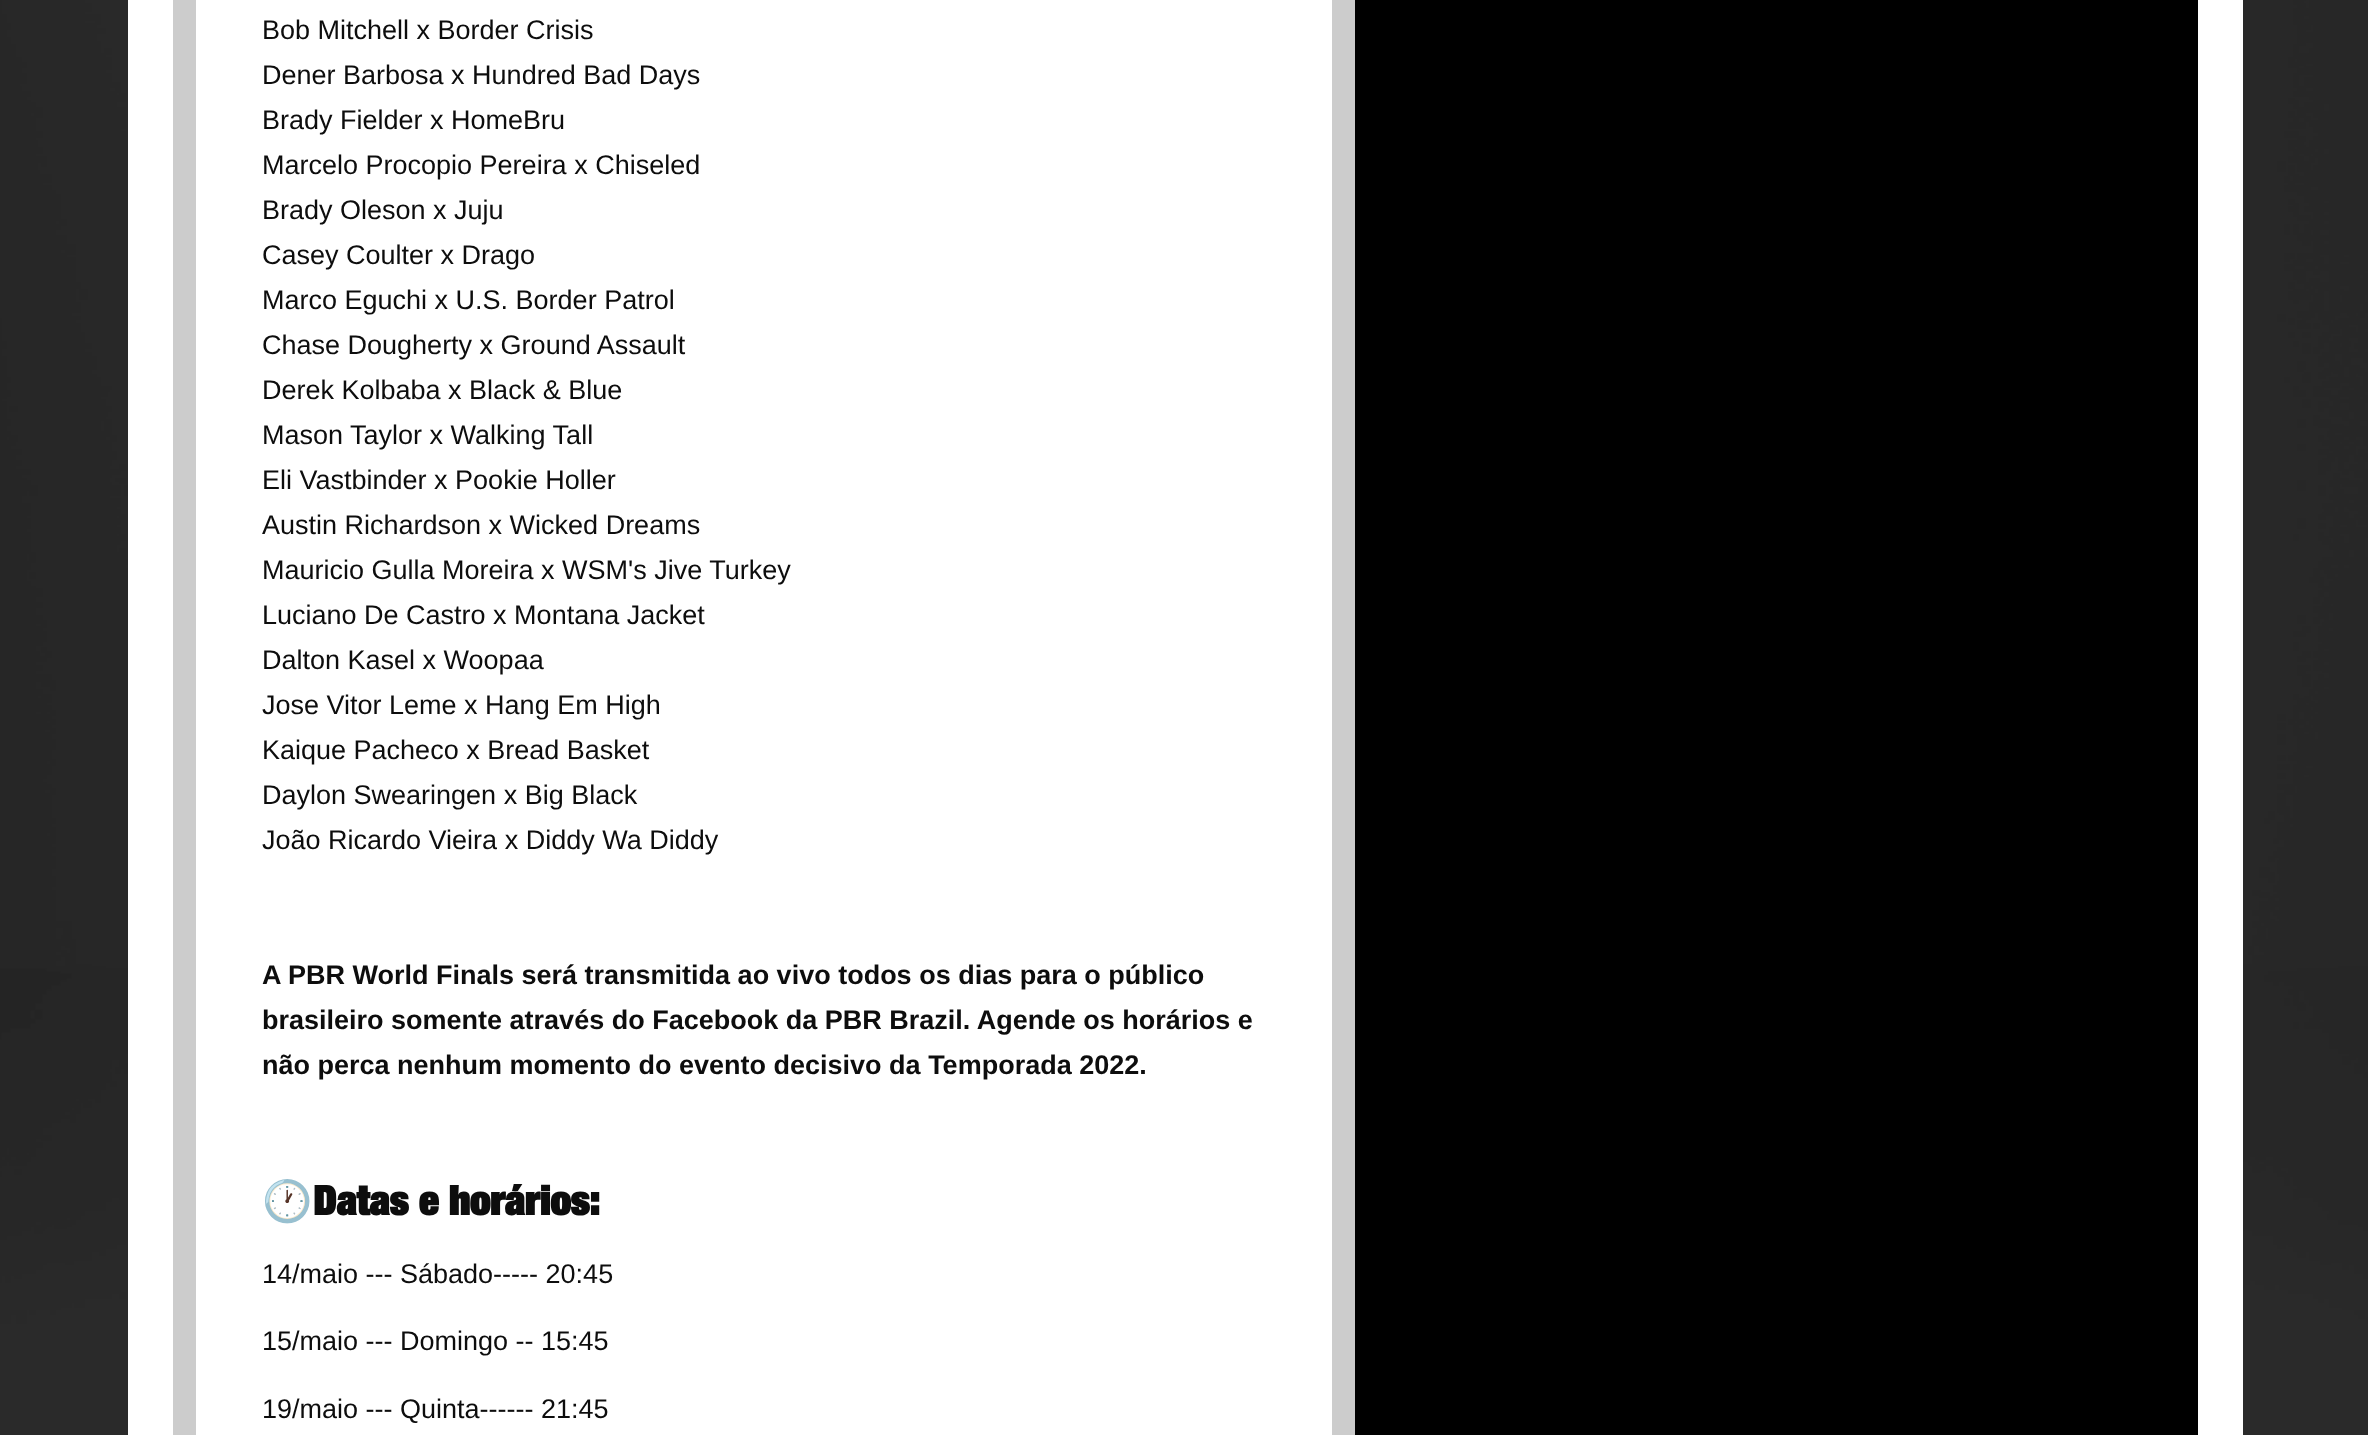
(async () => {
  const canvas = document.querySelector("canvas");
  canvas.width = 2368;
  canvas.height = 1435;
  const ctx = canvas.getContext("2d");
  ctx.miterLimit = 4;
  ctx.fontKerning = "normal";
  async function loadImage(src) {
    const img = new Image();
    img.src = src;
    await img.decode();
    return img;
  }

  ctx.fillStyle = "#ffffff";
  ctx.fillRect(0, 0, 2368, 1435);
  ctx.drawImage(await loadImage("img/1.png"), 0, 0, 2368, 1435);
  ctx.strokeStyle = "#ffffff";
  ctx.lineWidth = 45;
  ctx.strokeRect(150.5, -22.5, 2070, 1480);
  ctx.fillStyle = "#000000";
  ctx.fillRect(1355, 0, 843, 1435);
  ctx.fillStyle = "#ffffff";
  ctx.beginPath();
  ctx.rect(184.5, -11.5, 1159, 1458);
  ctx.fill();
  ctx.strokeStyle = "#cccccc";
  ctx.lineWidth = 23;
  ctx.stroke();
  ctx.font = "27px Liberation Sans";
  ctx.fillStyle = "#0d0d0d";
  for (const [text, x, y] of [
    ["Bob Mitchell x Border Crisis", 262, 39],
    ["Dener Barbosa x Hundred Bad Days", 262, 84],
    ["Brady Fielder x HomeBru", 262, 129],
    ["Marcelo Procopio Pereira x Chiseled", 262, 174],
    ["Brady Oleson x Juju", 262, 219],
    ["Casey Coulter x Drago", 262, 264],
    ["Marco Eguchi x U.S. Border Patrol", 262, 309],
    ["Chase Dougherty x Ground Assault", 262, 354],
    ["Derek Kolbaba x Black & Blue", 262, 399],
    ["Mason Taylor x Walking Tall", 262, 444],
    ["Eli Vastbinder x Pookie Holler", 262, 489],
    ["Austin Richardson x Wicked Dreams", 262, 534],
    ["Mauricio Gulla Moreira x WSM's Jive Turkey", 262, 579],
    ["Luciano De Castro x Montana Jacket", 262, 624],
    ["Dalton Kasel x Woopaa", 262, 669],
    ["Jose Vitor Leme x Hang Em High", 262, 714],
    ["Kaique Pacheco x Bread Basket", 262, 759],
    ["Daylon Swearingen x Big Black", 262, 804],
    ["João Ricardo Vieira x Diddy Wa Diddy", 262, 849],
  ]) {
    ctx.fillText(text, x, y);
  }
  ctx.font = "bold 27px Liberation Sans";
  for (const [text, x, y] of [
    ["A PBR World Finals será transmitida ao vivo todos os dias para o público", 262, 984],
    ["brasileiro somente através do Facebook da PBR Brazil. Agende os horários e", 262, 1029],
    ["não perca nenhum momento do evento decisivo da Temporada 2022.", 262, 1074],
  ]) {
    ctx.fillText(text, x, y);
  }
  ctx.font = "bold 40.5px Noto Color Emoji";
  ctx.fillText("🕐", 262, 1215);
  ctx.font = "bold 40.5px 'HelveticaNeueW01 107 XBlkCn'";
  ctx.fillText("Datas e horários:", 313, 1215);
  ctx.font = "27px Liberation Sans";
  for (const [text, x, y] of [
    ["14/maio --- Sábado----- 20:45", 262, 1283],
    ["15/maio --- Domingo -- 15:45", 262, 1350],
    ["19/maio --- Quinta------ 21:45", 262, 1418],
  ]) {
    ctx.fillText(text, x, y);
  }
})();
